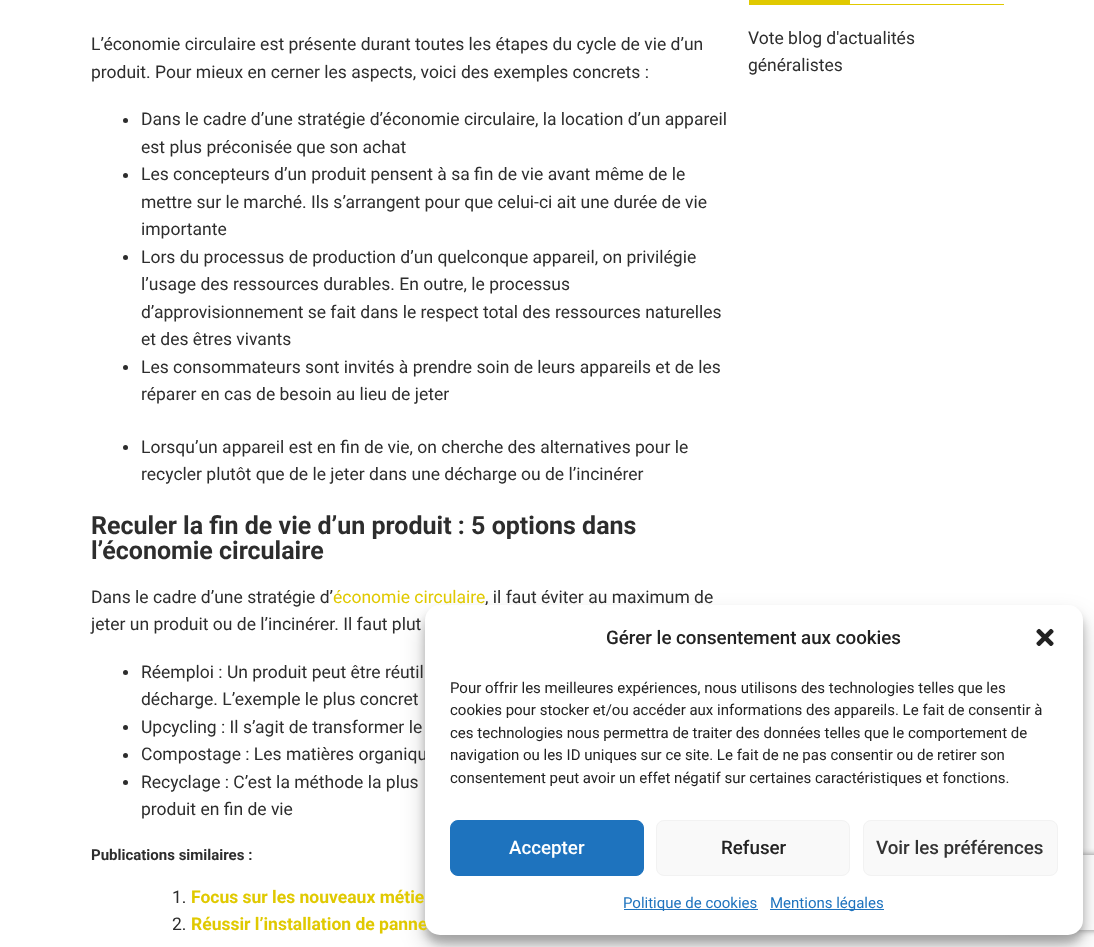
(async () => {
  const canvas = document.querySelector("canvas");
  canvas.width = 1094;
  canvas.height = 947;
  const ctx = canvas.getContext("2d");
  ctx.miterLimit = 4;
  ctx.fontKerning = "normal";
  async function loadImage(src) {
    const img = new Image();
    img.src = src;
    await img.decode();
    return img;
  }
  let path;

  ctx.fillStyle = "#ffffff";
  ctx.fillRect(0, 0, 1094, 947);
  ctx.fillStyle = "#2d2d2d";
  ctx.beginPath();
  ctx.arc(125.5, 120.5, 2.5, 0, Math.PI * 2);
  ctx.fill();
  ctx.beginPath();
  ctx.arc(125.5, 175.5, 2.5, 0, Math.PI * 2);
  ctx.fill();
  ctx.beginPath();
  ctx.arc(125.5, 257.5, 2.5, 0, Math.PI * 2);
  ctx.fill();
  ctx.beginPath();
  ctx.arc(125.5, 367.5, 2.5, 0, Math.PI * 2);
  ctx.fill();
  ctx.beginPath();
  ctx.arc(125.5, 447.5, 2.5, 0, Math.PI * 2);
  ctx.fill();
  ctx.beginPath();
  ctx.arc(125.5, 672.5, 2.5, 0, Math.PI * 2);
  ctx.fill();
  ctx.beginPath();
  ctx.arc(125.5, 727.5, 2.5, 0, Math.PI * 2);
  ctx.fill();
  ctx.beginPath();
  ctx.arc(125.5, 755.5, 2.5, 0, Math.PI * 2);
  ctx.fill();
  ctx.beginPath();
  ctx.arc(125.5, 782.5, 2.5, 0, Math.PI * 2);
  ctx.fill();
  ctx.fillStyle = "#e0c900";
  ctx.fillRect(749, 4, 255, 1);
  ctx.fillRect(749, 0, 101, 4);
  ctx.fillStyle = "rgba(0, 0, 0, 0.23)";
  ctx.filter = "blur(4px)";
  ctx.beginPath();
  ctx.roundRect(425, 613, 658, 330, 15);
  ctx.fill();
  ctx.filter = "none";
  ctx.fillStyle = "rgba(0, 0, 0, 0.19)";
  ctx.filter = "blur(12.5px)";
  ctx.beginPath();
  ctx.roundRect(425, 618, 658, 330, 15);
  ctx.fill();
  ctx.filter = "none";
  ctx.save();
  path = new Path2D("M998 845H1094V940H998ZM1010.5 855H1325.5C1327 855 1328 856 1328 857.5V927.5C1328 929 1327 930 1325.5 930H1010.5C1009 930 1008 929 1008 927.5V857.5C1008 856 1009 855 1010.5 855Z");
  ctx.clip(path, "evenodd");
  ctx.fillStyle = "#808080";
  ctx.filter = "blur(3px)";
  ctx.beginPath();
  ctx.roundRect(1008, 855, 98, 75, 2.5);
  ctx.fill();
  ctx.filter = "none";
  ctx.restore();
  ctx.font = "17.5px Roboto";
  ctx.fillStyle = "#2d2d2d";
  for (const [text, x, y] of [
    ["L’économie circulaire est présente durant toutes les étapes du cycle de vie d’un", 91, 50],
    ["produit. Pour mieux en cerner les aspects, voici des exemples concrets :", 91, 78],
    ["Dans le cadre d’une stratégie d’économie circulaire, la location d’un appareil", 141, 125],
    ["est plus préconisée que son achat", 141, 153],
    ["Les concepteurs d’un produit pensent à sa fin de vie avant même de le", 141, 180],
    ["mettre sur le marché. Ils s’arrangent pour que celui-ci ait une durée de vie", 141, 208],
    ["importante", 141, 235],
    ["Lors du processus de production d’un quelconque appareil, on privilégie", 141, 263],
    ["l’usage des ressources durables. En outre, le processus", 141, 290],
    ["d’approvisionnement se fait dans le respect total des ressources naturelles", 141, 318],
    ["et des êtres vivants", 141, 345],
    ["Les consommateurs sont invités à prendre soin de leurs appareils et de les", 141, 373],
    ["réparer en cas de besoin au lieu de jeter", 141, 400],
    ["Lorsqu’un appareil est en fin de vie, on cherche des alternatives pour le", 141, 453],
    ["recycler plutôt que de le jeter dans une décharge ou de l’incinérer", 141, 480],
  ]) {
    ctx.fillText(text, x, y);
  }
  ctx.font = "bold 25px Roboto";
  ctx.fillText("Reculer la fin de vie d’un produit : 5 options dans", 91, 534);
  ctx.fillText("l’économie circulaire", 91, 559);
  ctx.font = "17.5px Roboto";
  ctx.fillText("Dans le cadre d’une stratégie d’", 91, 603);
  ctx.fillStyle = "#e0c900";
  ctx.fillText("économie circulaire", 333, 603);
  ctx.fillStyle = "#2d2d2d";
  for (const [text, x, y] of [
    [", il faut éviter au maximum de", 485, 603],
    ["jeter un produit ou de l’incinérer. Il faut plut", 91, 630],
    ["Réemploi : Un produit peut être réutil", 141, 678],
    ["décharge. L’exemple le plus concret", 141, 705],
    ["Upcycling : Il s’agit de transformer le", 141, 733],
    ["Compostage : Les matières organiqu", 141, 760],
    ["Recyclage : C’est la méthode la plus", 141, 788],
    ["produit en fin de vie", 141, 815],
  ]) {
    ctx.fillText(text, x, y);
  }
  ctx.font = "bold 15px Roboto";
  ctx.fillText("Publications similaires :", 91, 860);
  ctx.font = "17.5px Roboto";
  ctx.fillText("1.", 172, 903);
  ctx.font = "bold 17.5px Roboto";
  ctx.fillStyle = "#e0c900";
  ctx.fillText("Focus sur les nouveaux métie", 191, 903);
  ctx.font = "17.5px Roboto";
  ctx.fillStyle = "#2d2d2d";
  ctx.fillText("2.", 172, 930);
  ctx.font = "bold 17.5px Roboto";
  ctx.fillStyle = "#e0c900";
  ctx.fillText("Réussir l’installation de panne", 191, 930);
  ctx.font = "17.5px Roboto";
  ctx.fillStyle = "#2d2d2d";
  ctx.fillText("Vote blog d'actualités", 748, 44);
  ctx.fillText("généralistes", 748, 71);
  ctx.fillStyle = "#ffffff";
  ctx.beginPath();
  ctx.roundRect(425, 605, 658, 330, 15);
  ctx.fill();
  ctx.font = "500 18.75px Roboto";
  ctx.fillStyle = "#222222";
  ctx.fillText("Gérer le consentement aux cookies", 606, 644);
  ctx.drawImage(await loadImage("img/1.png"), 1036, 628, 18, 18);
  ctx.font = "15px Roboto";
  for (const [text, x, y] of [
    ["Pour offrir les meilleures expériences, nous utilisons des technologies telles que les", 450, 693],
    ["cookies pour stocker et/ou accéder aux informations des appareils. Le fait de consentir à", 450, 715],
    ["ces technologies nous permettra de traiter des données telles que le comportement de", 450, 738],
    ["navigation ou les ID uniques sur ce site. Le fait de ne pas consentir ou de retirer son", 450, 760],
    ["consentement peut avoir un effet négatif sur certaines caractéristiques et fonctions.", 450, 783],
  ]) {
    ctx.fillText(text, x, y);
  }
  ctx.fillStyle = "#1e73be";
  ctx.beginPath();
  ctx.roundRect(450.5, 820.5, 193, 55, 7.5);
  ctx.fill();
  ctx.strokeStyle = "#1e73be";
  ctx.stroke();
  ctx.font = "500 18.75px Roboto";
  ctx.fillStyle = "#ffffff";
  ctx.fillText("Accepter", 509, 854);
  ctx.fillStyle = "#f9f9f9";
  ctx.beginPath();
  ctx.roundRect(656.5, 820.5, 193, 55, 7.5);
  ctx.fill();
  ctx.strokeStyle = "#f2f2f2";
  ctx.stroke();
  ctx.fillStyle = "#222222";
  ctx.fillText("Refuser", 721, 854);
  ctx.fillStyle = "#f9f9f9";
  ctx.beginPath();
  ctx.roundRect(863.5, 820.5, 194, 55, 7.5);
  ctx.fill();
  ctx.stroke();
  ctx.fillStyle = "#333333";
  ctx.fillText("Voir les préférences", 876, 854);
  ctx.fillStyle = "#1e73be";
  ctx.fillRect(624, 909, 134, 1);
  ctx.font = "15px Roboto";
  ctx.fillText("Politique de cookies", 623, 908);
  ctx.fillRect(770, 909, 114, 1);
  ctx.fillText("Mentions légales", 770, 908);
})();
